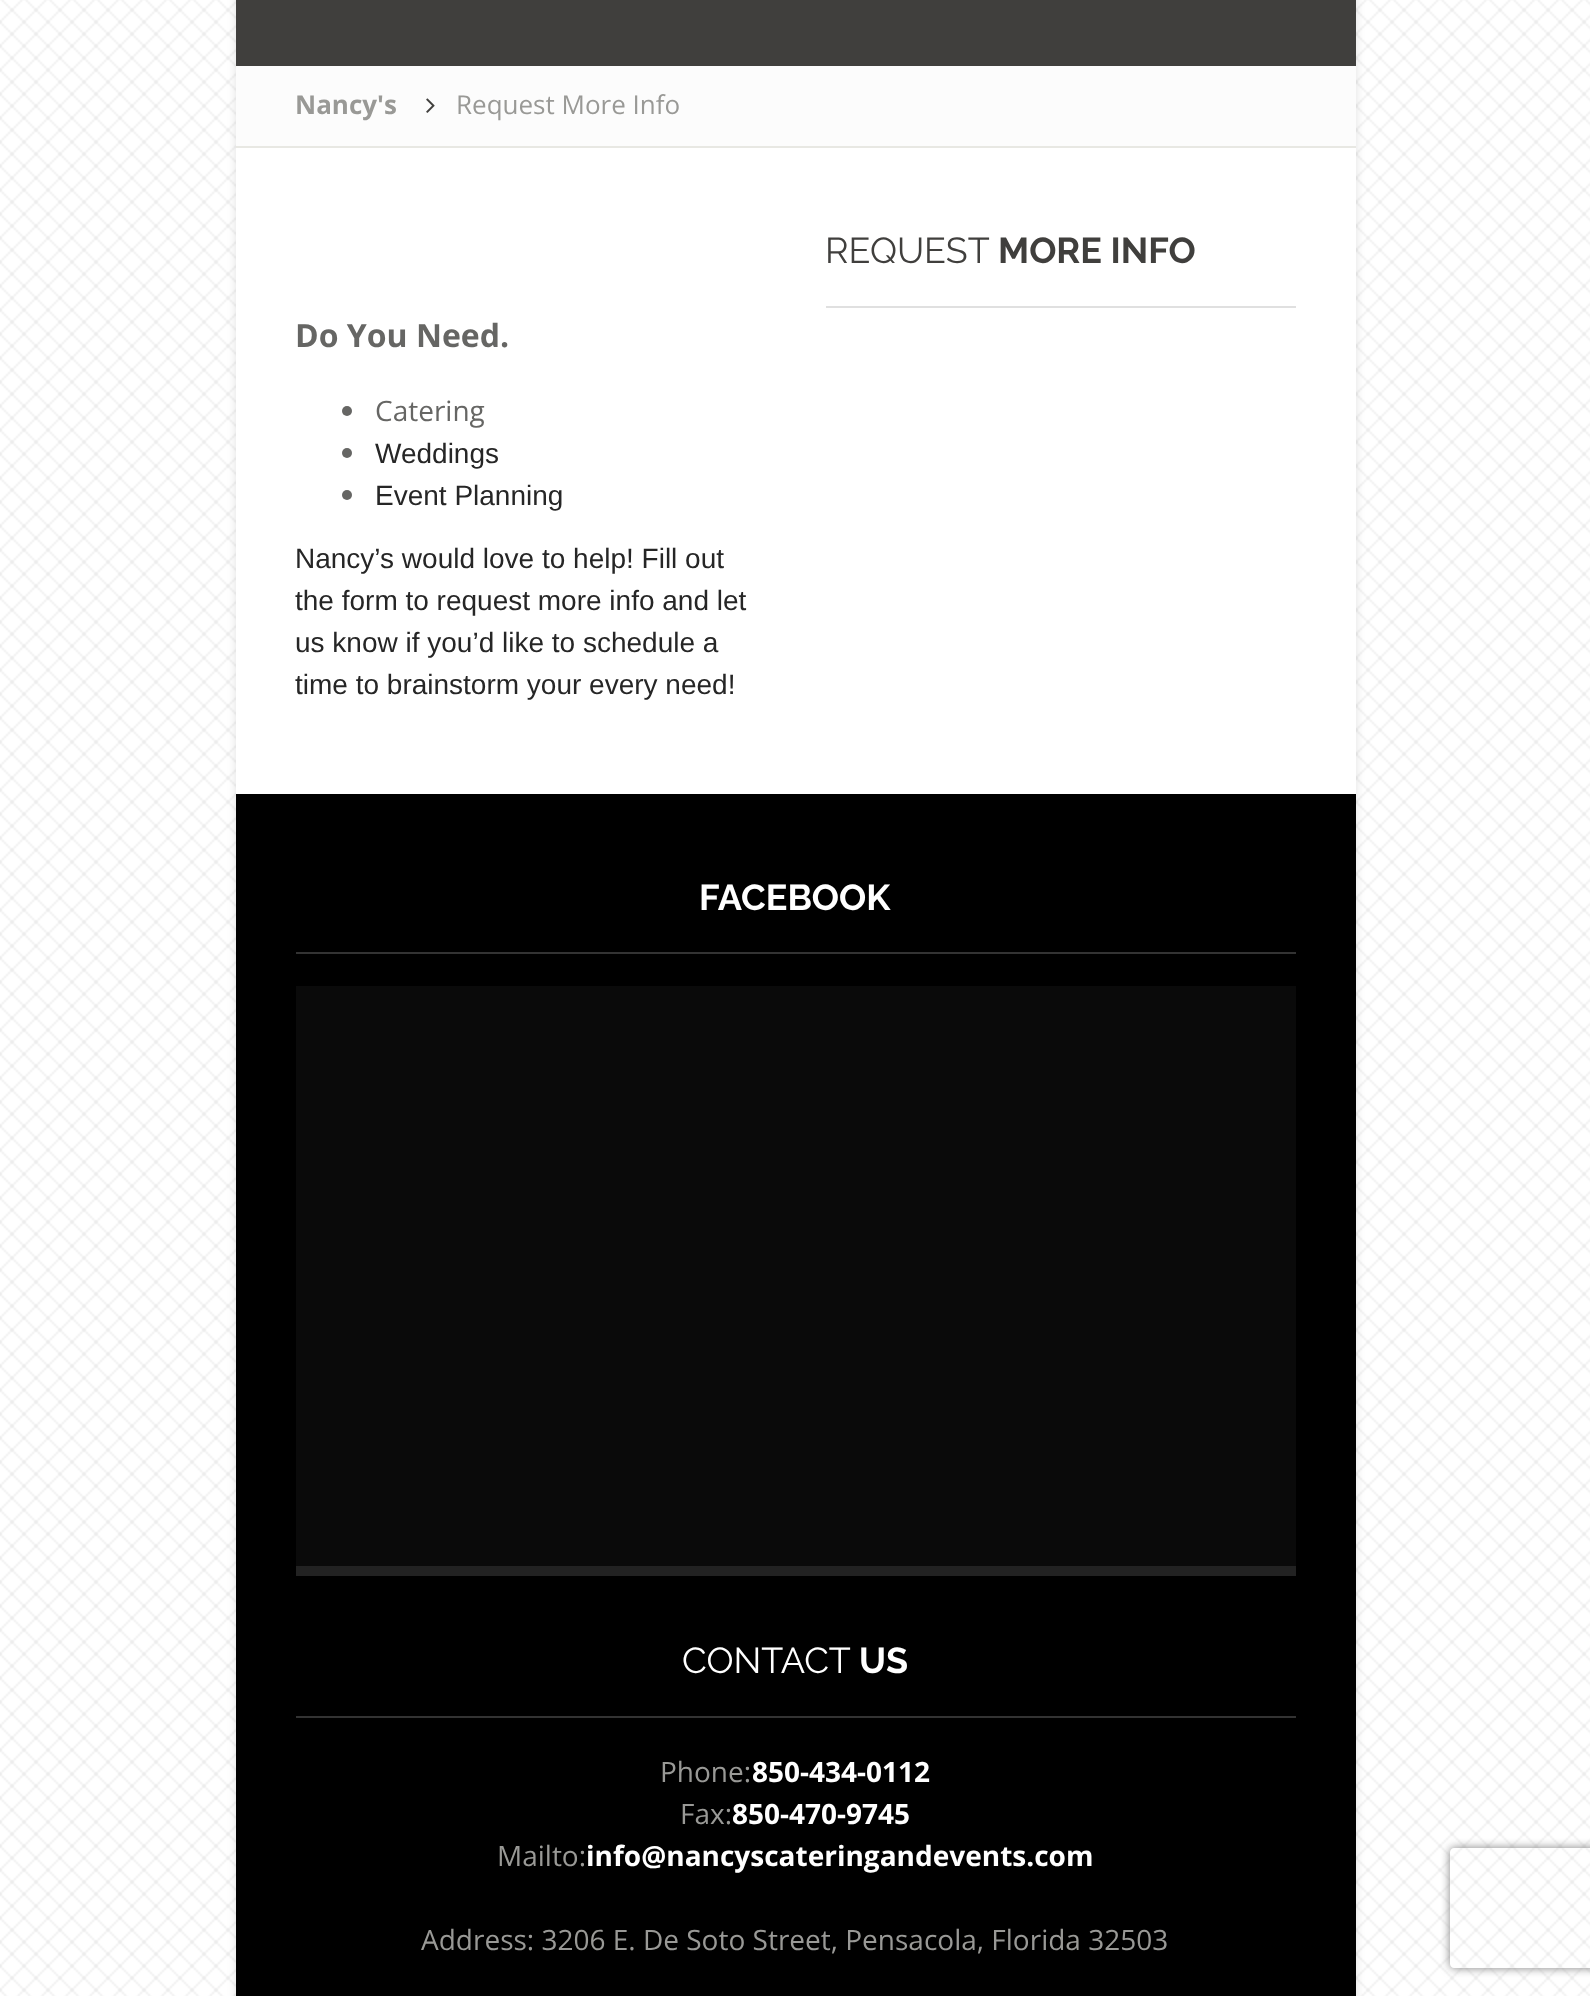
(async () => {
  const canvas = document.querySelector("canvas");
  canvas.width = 1590;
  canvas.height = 1996;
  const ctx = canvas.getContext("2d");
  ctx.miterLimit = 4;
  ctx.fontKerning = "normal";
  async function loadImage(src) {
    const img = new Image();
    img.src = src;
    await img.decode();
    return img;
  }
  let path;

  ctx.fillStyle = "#ffffff";
  ctx.fillRect(0, 0, 1590, 1996);
  ctx.drawImage(await loadImage("img/1.png"), 0, 0, 1590, 1996);
  ctx.fillStyle = "rgba(0, 0, 0, 0.12)";
  ctx.filter = "blur(5px)";
  ctx.beginPath();
  ctx.rect(236, -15, 1120, 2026);
  ctx.fill();
  ctx.filter = "none";
  for (const [x, y, w, h, color] of [
    [236, 148, 1120, 646, "#ffffff"],
    [236, 0, 1120, 66, "#403f3d"],
    [236, 66, 1120, 80, "#fcfcfc"],
    [236, 146, 1120, 2, "#e8e8e3"],
  ]) {
    ctx.fillStyle = color;
    ctx.fillRect(x, y, w, h);
  }
  ctx.drawImage(await loadImage("img/2.png"), 426, 98, 9, 15);
  ctx.fillStyle = "#e0e0e0";
  ctx.fillRect(826, 306, 470, 2);
  ctx.fillStyle = "#666664";
  ctx.beginPath();
  ctx.arc(347, 411, 5, 0, Math.PI * 2);
  ctx.fill();
  ctx.beginPath();
  ctx.arc(347, 453, 5, 0, Math.PI * 2);
  ctx.fill();
  ctx.beginPath();
  ctx.arc(347, 495, 5, 0, Math.PI * 2);
  ctx.fill();
  for (const [x, y, w, h, color] of [
    [236, 794, 1120, 1202, "#000000"],
    [296, 952, 1000, 2, "#333333"],
    [296, 1566, 1000, 10, "#222222"],
    [296, 986, 1000, 580, "#0a0a0a"],
    [296, 1716, 1000, 2, "#333333"],
  ]) {
    ctx.fillStyle = color;
    ctx.fillRect(x, y, w, h);
  }
  ctx.save();
  path = new Path2D("M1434 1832H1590V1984H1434ZM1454 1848H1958C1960 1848 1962 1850 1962 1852V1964C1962 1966 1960 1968 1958 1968H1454C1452 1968 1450 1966 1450 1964V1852C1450 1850 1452 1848 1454 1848Z");
  ctx.clip(path, "evenodd");
  ctx.fillStyle = "#808080";
  ctx.filter = "blur(5px)";
  ctx.beginPath();
  ctx.roundRect(1450, 1848, 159, 120, 4);
  ctx.fill();
  ctx.filter = "none";
  ctx.restore();
  ctx.font = "bold 26px Open Sans";
  ctx.fillStyle = "#999996";
  ctx.fillText("Nancy's", 295, 114);
  ctx.font = "26px Open Sans";
  ctx.fillText("Request More Info", 456, 114);
  ctx.font = "36px Raleway";
  ctx.fillStyle = "#403f3d";
  ctx.fillText("REQUEST", 825, 263);
  ctx.font = "bold 36px Raleway";
  ctx.fillText("MORE INFO", 998, 263);
  ctx.font = "bold 32px Open Sans";
  ctx.fillStyle = "#666664";
  ctx.fillText("Do You Need.", 295, 347);
  ctx.font = "28px Open Sans";
  ctx.fillText("Catering", 375, 421);
  ctx.font = "28px Liberation Sans";
  ctx.fillStyle = "#262626";
  for (const [text, x, y] of [
    ["Weddings", 375, 463],
    ["Event Planning", 375, 505],
    ["Nancy’s would love to help! Fill out", 295, 568],
    ["the form to request more info and let", 295, 610],
    ["us know if you’d like to schedule a", 295, 652],
    ["time to brainstorm your every need!", 295, 694],
  ]) {
    ctx.fillText(text, x, y);
  }
  ctx.font = "bold 36px Raleway";
  ctx.fillStyle = "#ffffff";
  ctx.fillText("FACEBOOK", 699, 910);
  ctx.font = "36px Raleway";
  ctx.fillText("CONTACT", 682, 1673);
  ctx.font = "bold 36px Raleway";
  ctx.fillText("US", 859, 1673);
  ctx.font = "28px Open Sans";
  ctx.fillStyle = "#999996";
  ctx.fillText("Phone:", 660, 1782);
  ctx.font = "bold 28px Open Sans";
  ctx.fillStyle = "#ffffff";
  ctx.fillText("850-434-0112", 752, 1782);
  ctx.font = "28px Open Sans";
  ctx.fillStyle = "#999996";
  ctx.fillText("Fax:", 680, 1824);
  ctx.font = "bold 28px Open Sans";
  ctx.fillStyle = "#ffffff";
  ctx.fillText("850-470-9745", 732, 1824);
  ctx.font = "28px Open Sans";
  ctx.fillStyle = "#999996";
  ctx.fillText("Mailto:", 497, 1866);
  ctx.font = "bold 28px Open Sans";
  ctx.fillStyle = "#ffffff";
  ctx.fillText("info@nancyscateringandevents.com", 586, 1866);
  ctx.font = "28px Open Sans";
  ctx.fillStyle = "#999996";
  ctx.fillText("Address: 3206 E. De Soto Street, Pensacola, Florida 32503", 421, 1950);
})();
